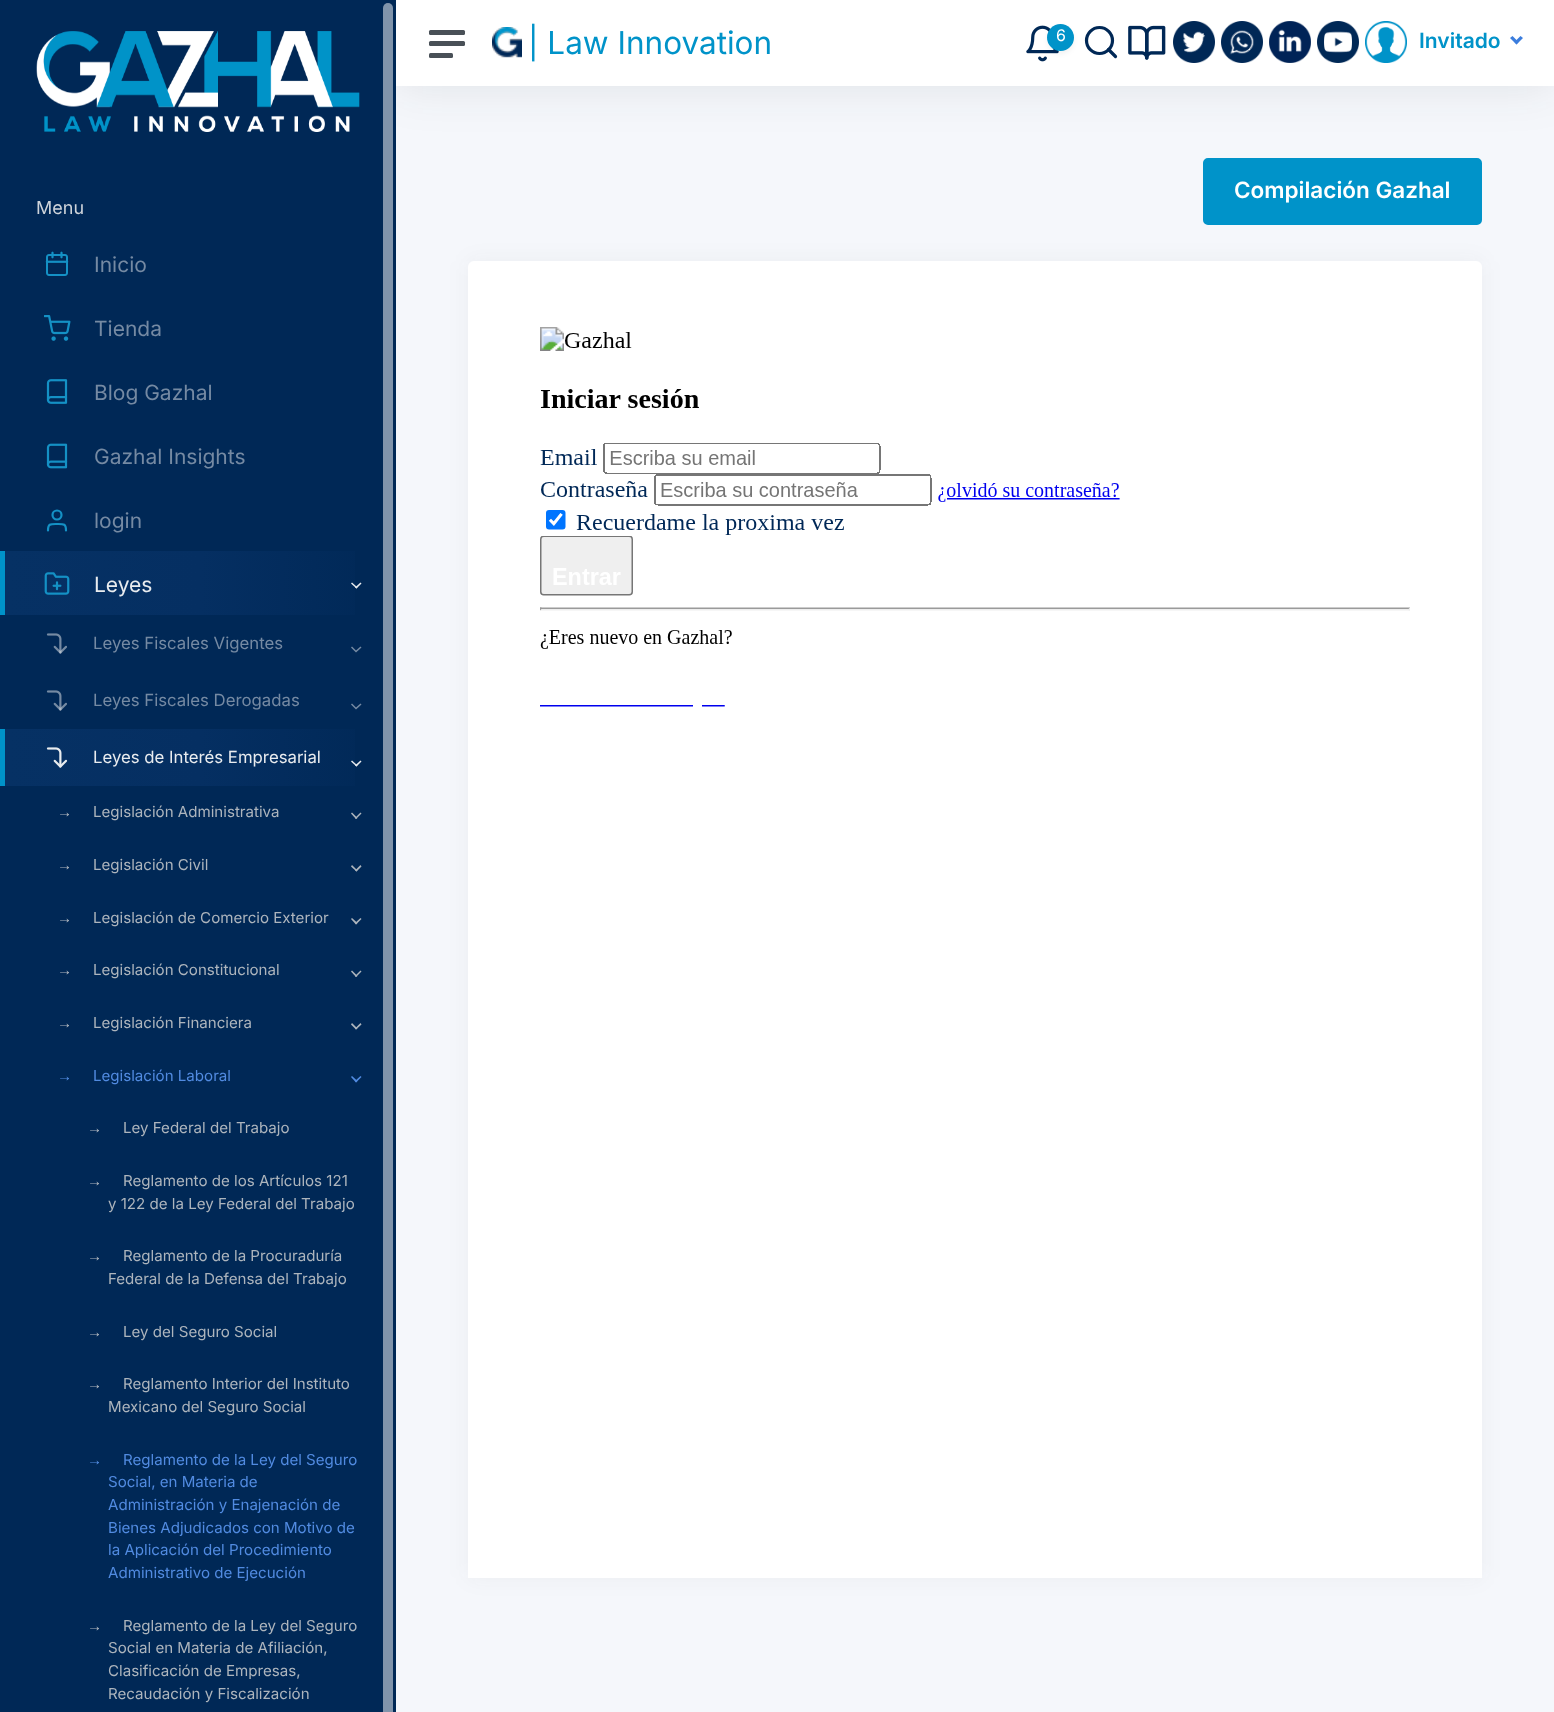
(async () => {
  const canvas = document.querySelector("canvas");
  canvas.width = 1554;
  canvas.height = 1712;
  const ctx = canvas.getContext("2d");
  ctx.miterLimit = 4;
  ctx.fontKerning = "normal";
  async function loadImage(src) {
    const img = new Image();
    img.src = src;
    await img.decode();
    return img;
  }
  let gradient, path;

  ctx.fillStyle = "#002856";
  ctx.fillRect(0, 0, 1554, 1712);
  ctx.fillStyle = "#f5f7fb";
  ctx.fillRect(396, 86, 1158, 1626);
  ctx.drawImage(await loadImage("img/10.png"), 36, 31, 324, 101);
  ctx.fillStyle = "#8094ab";
  ctx.beginPath();
  ctx.roundRect(383, 3, 10, 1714, 5);
  ctx.fill();
  ctx.save();
  ctx.beginPath();
  ctx.rect(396, 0, 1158, 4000);
  ctx.clip();
  ctx.fillStyle = "rgba(33, 37, 41, 0.1)";
  ctx.filter = "blur(24px)";
  ctx.beginPath();
  ctx.rect(396, 0, 1158, 86);
  ctx.fill();
  ctx.filter = "none";
  ctx.restore();
  ctx.fillStyle = "#ffffff";
  ctx.fillRect(396, 0, 1158, 86);
  ctx.fillStyle = "#495057";
  ctx.beginPath();
  ctx.roundRect(429, 41, 36, 5, 1.5);
  ctx.fill();
  ctx.beginPath();
  ctx.roundRect(429, 30, 36, 5, 1.5);
  ctx.fill();
  ctx.beginPath();
  ctx.roundRect(429, 53, 24, 5, 1.5);
  ctx.fill();
  ctx.drawImage(await loadImage("img/1.png"), 492, 27, 30, 31);
  ctx.drawImage(await loadImage("img/2.png"), 1026, 25, 33, 37);
  ctx.fillStyle = "rgba(0, 0, 0, 0.05)";
  ctx.filter = "blur(2.5px)";
  ctx.beginPath();
  ctx.roundRect(1047, 27, 27, 27, 13.5);
  ctx.fill();
  ctx.filter = "none";
  ctx.fillStyle = "#0093c9";
  ctx.beginPath();
  ctx.arc(1060.5, 37.5, 13.5, 0, Math.PI * 2);
  ctx.fill();
  ctx.beginPath();
  ctx.arc(1099.5, 40.5, 13, 0, Math.PI * 2);
  ctx.strokeStyle = "#002856";
  ctx.lineWidth = 3.2;
  ctx.stroke();
  path = new Path2D("M1115.5 56.5L1108.5 49.5");
  ctx.lineCap = "round";
  ctx.lineJoin = "round";
  ctx.stroke(path);
  ctx.drawImage(await loadImage("img/3.png"), 1128, 25, 38, 35);
  ctx.drawImage(await loadImage("img/4.png"), 1173, 21, 42, 42);
  ctx.drawImage(await loadImage("img/5.png"), 1221, 21, 42, 42);
  ctx.drawImage(await loadImage("img/6.png"), 1269, 21, 42, 42);
  ctx.drawImage(await loadImage("img/7.png"), 1317, 21, 42, 42);
  ctx.drawImage(await loadImage("img/8.png"), 1365, 21, 42, 42);
  ctx.fillStyle = "#3b7ddd";
  path = new Path2D("M1520.5 36L1523 38L1516.5 44.5L1514.5 42Z");
  ctx.fill(path);
  path = new Path2D("M1512.5 36L1518.5 42L1516.5 44.5L1510 38Z");
  ctx.fill(path);
  ctx.fillStyle = "#0093c9";
  ctx.beginPath();
  ctx.roundRect(1204, 159, 277, 65, 4);
  ctx.fill();
  ctx.strokeStyle = "#0093c9";
  ctx.lineWidth = 2;
  ctx.lineJoin = "miter";
  ctx.stroke();
  ctx.fillStyle = "rgba(33, 37, 41, 0.05)";
  ctx.filter = "blur(10.5px)";
  ctx.beginPath();
  ctx.roundRect(468, 261, 1014, 1317, 6);
  ctx.fill();
  ctx.filter = "none";
  ctx.fillStyle = "#ffffff";
  ctx.beginPath();
  ctx.roundRect(468, 261, 1014, 1317, [6, 6, 0, 0]);
  ctx.fill();
  ctx.drawImage(await loadImage("img/9.png"), 540, 327, 870, 380);
  ctx.drawImage(await loadImage("img/11.png"), 45, 251, 24, 25);
  ctx.drawImage(await loadImage("img/12.png"), 44, 315, 27, 26);
  ctx.drawImage(await loadImage("img/13.png"), 46, 379, 22, 25);
  ctx.drawImage(await loadImage("img/14.png"), 46, 443, 22, 26);
  ctx.beginPath();
  ctx.arc(57, 515, 4.5, 0, Math.PI * 2);
  ctx.strokeStyle = "#1491c5";
  ctx.lineWidth = 2.2;
  ctx.stroke();
  path = new Path2D("M66 530.5C66 523.5 63.5 524 57 524C50.5 524 48 523.5 48 530.5");
  ctx.lineJoin = "round";
  ctx.stroke(path);
  gradient = ctx.createLinearGradient(4.5, 583, 396, 583);
  gradient.addColorStop(0, "#063164");
  gradient.addColorStop(0.5, "#052f62");
  gradient.addColorStop(1, "#002856");
  ctx.fillStyle = gradient;
  ctx.fillRect(5, 551, 350, 64);
  ctx.fillStyle = "#0093c9";
  ctx.fillRect(0, 551, 5, 64);
  ctx.drawImage(await loadImage("img/15.png"), 44, 572, 26, 23);
  ctx.fillStyle = "#e9ecef";
  path = new Path2D("M360.5 582.5L361.5 583.5L356.5 588.5L355 587.5Z");
  ctx.fill(path);
  path = new Path2D("M352 582.5L357.5 587.5L356.5 588.5L351 583.5Z");
  ctx.fill(path);
  ctx.drawImage(await loadImage("img/16.png"), 46, 633, 21, 21);
  ctx.fillStyle = "#758aa3";
  path = new Path2D("M361.5 647.5L356 652.5V650.5L360.5 646.5ZM356 652.5L351 647.5L352 646.5L356 650.5Z");
  ctx.fill(path);
  ctx.drawImage(await loadImage("img/16.png"), 46, 690, 21, 21);
  path = new Path2D("M361.5 704.5L356 709.5V707.5L360.5 703.5ZM356 709.5L351 704.5L352 703.5L356 707.5Z");
  ctx.fill(path);
  gradient = ctx.createLinearGradient(4.5, 758, 396, 758);
  gradient.addColorStop(0, "#063164");
  gradient.addColorStop(0.5, "#052f62");
  gradient.addColorStop(1, "#002856");
  ctx.fillStyle = gradient;
  ctx.fillRect(5, 729, 350, 57);
  ctx.fillStyle = "#0093c9";
  ctx.fillRect(0, 729, 5, 57);
  ctx.drawImage(await loadImage("img/17.png"), 46, 747, 22, 21);
  ctx.fillStyle = "#e9ecef";
  path = new Path2D("M360.5 760.5L361.5 761.5L356.5 766.5L355 765.5Z");
  ctx.fill(path);
  path = new Path2D("M352 760.5L357.5 765.5L356.5 766.5L351 761.5Z");
  ctx.fill(path);
  ctx.fillStyle = "#adb5bd";
  path = new Path2D("M360.5 812.5L361.5 813.5L356 819L355 818Z");
  ctx.fill(path);
  path = new Path2D("M352 812.5L357.5 818L356 819L351 813.5Z");
  ctx.fill(path);
  path = new Path2D("M360.5 865L361.5 866.5L356.5 871.5L355 870.5Z");
  ctx.fill(path);
  path = new Path2D("M352 865L357.5 870.5L356.5 871.5L351 866.5Z");
  ctx.fill(path);
  path = new Path2D("M360.5 918L361.5 919L356 924.5L355 923Z");
  ctx.fill(path);
  path = new Path2D("M352 918L357.5 923L356 924.5L351 919Z");
  ctx.fill(path);
  path = new Path2D("M360.5 970.5L361.5 971.5L356 977L355 976Z");
  ctx.fill(path);
  path = new Path2D("M352 970.5L357.5 976L356 977L351 971.5Z");
  ctx.fill(path);
  path = new Path2D("M360.5 1023L361.5 1024.5L356 1029.5L355 1028.5Z");
  ctx.fill(path);
  path = new Path2D("M352 1023L357.5 1028.5L356 1029.5L351 1024.5Z");
  ctx.fill(path);
  ctx.fillStyle = "#518be1";
  path = new Path2D("M360.5 1076L361.5 1077L356 1082.5L355 1081Z");
  ctx.fill(path);
  path = new Path2D("M352 1076L357.5 1081L356 1082.5L351 1077Z");
  ctx.fill(path);
  ctx.font = "31.5px Inter";
  ctx.fillStyle = "#0093c9";
  ctx.fillText("| Law Innovation", 528, 54);
  ctx.font = "16px Inter";
  ctx.fillStyle = "#ffffff";
  ctx.fillText("6", 1056, 41);
  ctx.font = "600 21px Inter";
  ctx.fillStyle = "#0093c9";
  ctx.fillText("Invitado", 1419, 48);
  ctx.font = "600 22.5px Inter";
  ctx.fillStyle = "#ffffff";
  ctx.fillText("Compilación Gazhal", 1234, 198);
  ctx.font = "18px Inter";
  ctx.fillStyle = "#ced4da";
  ctx.fillText("Menu", 36, 214);
  ctx.font = "21px Inter";
  ctx.fillStyle = "#758aa3";
  for (const [text, x, y] of [
    ["Inicio", 94, 272],
    ["Tienda", 94, 336],
    ["Blog Gazhal", 94, 400],
    ["Gazhal Insights", 94, 464],
    ["login", 94, 528],
  ]) {
    ctx.fillText(text, x, y);
  }
  ctx.fillStyle = "#e9ecef";
  ctx.fillText("Leyes", 94, 592);
  ctx.font = "16.75px Inter";
  ctx.fillStyle = "#758aa3";
  ctx.fillText("Leyes Fiscales Vigentes", 93, 649);
  ctx.fillText("Leyes Fiscales Derogadas", 93, 706);
  ctx.fillStyle = "#e9ecef";
  ctx.fillText("Leyes de Interés Empresarial", 93, 763);
  ctx.font = "15.1px Liberation Sans";
  ctx.fillStyle = "#adb5bd";
  ctx.fillText("→", 57, 817);
  ctx.font = "15.1px Inter";
  ctx.fillText("Legislación Administrativa", 93, 817);
  ctx.font = "15.1px Liberation Sans";
  ctx.fillText("→", 57, 870);
  ctx.font = "15.1px Inter";
  ctx.fillText("Legislación Civil", 93, 870);
  ctx.font = "15.1px Liberation Sans";
  ctx.fillText("→", 57, 923);
  ctx.font = "15.1px Inter";
  ctx.fillText("Legislación de Comercio Exterior", 93, 923);
  ctx.font = "15.1px Liberation Sans";
  ctx.fillText("→", 57, 975);
  ctx.font = "15.1px Inter";
  ctx.fillText("Legislación Constitucional", 93, 975);
  ctx.font = "15.1px Liberation Sans";
  ctx.fillText("→", 57, 1028);
  ctx.font = "15.1px Inter";
  ctx.fillText("Legislación Financiera", 93, 1028);
  ctx.font = "15.1px Liberation Sans";
  ctx.fillStyle = "#518be1";
  ctx.fillText("→", 57, 1081);
  ctx.font = "15.1px Inter";
  ctx.fillText("Legislación Laboral", 93, 1081);
  ctx.font = "15.1px Liberation Sans";
  ctx.fillStyle = "#adb5bd";
  ctx.fillText("→", 87, 1133);
  ctx.font = "15.1px Inter";
  ctx.fillText("Ley Federal del Trabajo", 123, 1133);
  ctx.font = "15.1px Liberation Sans";
  ctx.fillText("→", 87, 1186);
  ctx.font = "15.1px Inter";
  ctx.fillText("Reglamento de los Artículos 121", 123, 1186);
  ctx.fillText("y 122 de la Ley Federal del Trabajo", 108, 1209);
  ctx.font = "15.1px Liberation Sans";
  ctx.fillText("→", 87, 1261);
  ctx.font = "15.1px Inter";
  ctx.fillText("Reglamento de la Procuraduría", 123, 1261);
  ctx.fillText("Federal de la Defensa del Trabajo", 108, 1284);
  ctx.font = "15.1px Liberation Sans";
  ctx.fillText("→", 87, 1337);
  ctx.font = "15.1px Inter";
  ctx.fillText("Ley del Seguro Social", 123, 1337);
  ctx.font = "15.1px Liberation Sans";
  ctx.fillText("→", 87, 1389);
  ctx.font = "15.1px Inter";
  ctx.fillText("Reglamento Interior del Instituto", 123, 1389);
  ctx.fillText("Mexicano del Seguro Social", 108, 1412);
  ctx.font = "15.1px Liberation Sans";
  ctx.fillStyle = "#518be1";
  ctx.fillText("→", 87, 1465);
  ctx.font = "15.1px Inter";
  for (const [text, x, y] of [
    ["Reglamento de la Ley del Seguro", 123, 1465],
    ["Social, en Materia de", 108, 1487],
    ["Administración y Enajenación de", 108, 1510],
    ["Bienes Adjudicados con Motivo de", 108, 1533],
    ["la Aplicación del Procedimiento", 108, 1555],
    ["Administrativo de Ejecución", 108, 1578],
  ]) {
    ctx.fillText(text, x, y);
  }
  ctx.font = "15.1px Liberation Sans";
  ctx.fillStyle = "#adb5bd";
  ctx.fillText("→", 87, 1631);
  ctx.font = "15.1px Inter";
  for (const [text, x, y] of [
    ["Reglamento de la Ley del Seguro", 123, 1631],
    ["Social en Materia de Afiliación,", 108, 1653],
    ["Clasificación de Empresas,", 108, 1676],
    ["Recaudación y Fiscalización", 108, 1699],
  ]) {
    ctx.fillText(text, x, y);
  }
})();
